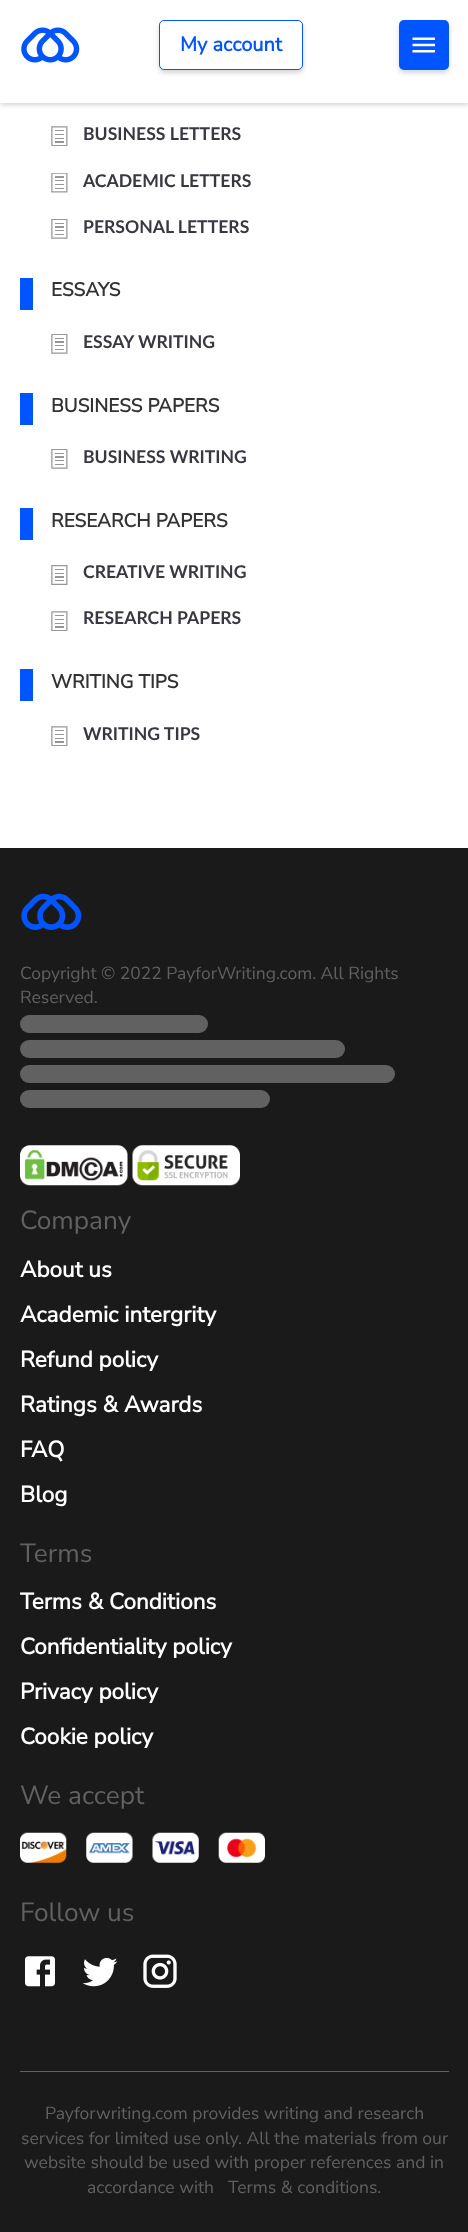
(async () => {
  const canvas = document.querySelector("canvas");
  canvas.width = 468;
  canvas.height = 2232;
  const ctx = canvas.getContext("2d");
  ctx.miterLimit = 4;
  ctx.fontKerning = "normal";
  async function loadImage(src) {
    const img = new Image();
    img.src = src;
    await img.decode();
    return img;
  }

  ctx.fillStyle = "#ffffff";
  ctx.fillRect(0, 0, 468, 2232);
  ctx.fillStyle = "rgba(0, 0, 0, 0.16)";
  ctx.filter = "blur(2.5px)";
  ctx.beginPath();
  ctx.rect(0, 3, 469, 102);
  ctx.fill();
  ctx.filter = "none";
  ctx.fillStyle = "#ffffff";
  ctx.fillRect(0, 0, 468, 103);
  ctx.drawImage(await loadImage("img/1.png"), 21, 27, 59, 36);
  ctx.fillStyle = "rgba(0, 0, 0, 0.16)";
  ctx.filter = "blur(2.5px)";
  ctx.beginPath();
  ctx.roundRect(159, 23, 144, 50, 5);
  ctx.fill();
  ctx.filter = "none";
  ctx.fillStyle = "#ffffff";
  ctx.beginPath();
  ctx.roundRect(159.5, 20.5, 143, 49, 4.5);
  ctx.fill();
  ctx.strokeStyle = "#0055ff";
  ctx.stroke();
  ctx.fillStyle = "rgba(0, 0, 0, 0.16)";
  ctx.filter = "blur(2.5px)";
  ctx.beginPath();
  ctx.roundRect(399, 23, 50, 50, 5);
  ctx.fill();
  ctx.filter = "none";
  ctx.fillStyle = "#0055ff";
  ctx.beginPath();
  ctx.roundRect(399, 20, 50, 50, 5);
  ctx.fill();
  ctx.drawImage(await loadImage("img/2.png"), 412, 37, 23, 16);
  ctx.drawImage(await loadImage("img/3.png"), 51, 126, 17, 20);
  ctx.drawImage(await loadImage("img/4.png"), 51, 173, 17, 20);
  ctx.drawImage(await loadImage("img/5.png"), 51, 219, 17, 20);
  ctx.fillRect(20, 278, 13, 32);
  ctx.drawImage(await loadImage("img/5.png"), 51, 334, 17, 20);
  ctx.fillRect(20, 393, 13, 32);
  ctx.drawImage(await loadImage("img/5.png"), 51, 449, 17, 20);
  ctx.fillRect(20, 508, 13, 32);
  ctx.drawImage(await loadImage("img/6.png"), 51, 565, 17, 20);
  ctx.drawImage(await loadImage("img/3.png"), 51, 611, 17, 20);
  ctx.fillRect(20, 669, 13, 32);
  ctx.drawImage(await loadImage("img/3.png"), 51, 726, 17, 20);
  ctx.fillStyle = "#1a1a1a";
  ctx.fillRect(0, 848, 468, 1384);
  ctx.drawImage(await loadImage("img/7.png"), 21, 893, 61, 37);
  ctx.fillStyle = "#616161";
  ctx.beginPath();
  ctx.roundRect(20, 1015, 188, 18, 9);
  ctx.fill();
  ctx.beginPath();
  ctx.roundRect(20, 1040, 325, 18, 9);
  ctx.fill();
  ctx.beginPath();
  ctx.roundRect(20, 1065, 375, 18, 9);
  ctx.fill();
  ctx.beginPath();
  ctx.roundRect(20, 1090, 250, 18, 9);
  ctx.fill();
  ctx.drawImage(await loadImage("img/8.png"), 20, 1145, 108, 41);
  ctx.drawImage(await loadImage("img/9.png"), 132, 1145, 108, 41);
  ctx.drawImage(await loadImage("img/10.png"), 20, 1832, 47, 31);
  ctx.drawImage(await loadImage("img/11.png"), 86, 1832, 47, 31);
  ctx.drawImage(await loadImage("img/12.png"), 152, 1832, 47, 31);
  ctx.drawImage(await loadImage("img/13.png"), 218, 1832, 47, 31);
  ctx.drawImage(await loadImage("img/14.png"), 25, 1956, 30, 31);
  ctx.drawImage(await loadImage("img/15.png"), 82, 1957, 36, 30);
  ctx.drawImage(await loadImage("img/16.png"), 143, 1954, 34, 34);
  ctx.fillRect(20, 2071, 429, 1);
  ctx.font = "bold 20px Nunito Sans";
  ctx.fillStyle = "#0055ff";
  ctx.fillText("My account", 180, 51);
  ctx.font = "bold 17.6px Lato";
  ctx.fillStyle = "#383840";
  for (const [text, x, y] of [
    ["BUSINESS LETTERS", 83, 140],
    ["ACADEMIC LETTERS", 83, 187],
    ["PERSONAL LETTERS", 83, 233],
  ]) {
    ctx.fillText(text, x, y);
  }
  ctx.font = "bold 19px Nunito Sans";
  ctx.fillStyle = "#333333";
  ctx.fillText("ESSAYS", 51, 296);
  ctx.font = "bold 17.6px Lato";
  ctx.fillStyle = "#383840";
  ctx.fillText("ESSAY WRITING", 83, 348);
  ctx.font = "bold 19px Nunito Sans";
  ctx.fillStyle = "#333333";
  ctx.fillText("BUSINESS PAPERS", 51, 412);
  ctx.font = "bold 17.6px Lato";
  ctx.fillStyle = "#383840";
  ctx.fillText("BUSINESS WRITING", 83, 463);
  ctx.font = "bold 19px Nunito Sans";
  ctx.fillStyle = "#333333";
  ctx.fillText("RESEARCH PAPERS", 51, 527);
  ctx.font = "bold 17.6px Lato";
  ctx.fillStyle = "#383840";
  ctx.fillText("CREATIVE WRITING", 83, 578);
  ctx.fillText("RESEARCH PAPERS", 83, 624);
  ctx.font = "bold 19px Nunito Sans";
  ctx.fillStyle = "#333333";
  ctx.fillText("WRITING TIPS", 51, 688);
  ctx.font = "bold 17.6px Lato";
  ctx.fillStyle = "#383840";
  ctx.fillText("WRITING TIPS", 83, 740);
  ctx.font = "17.5px Nunito Sans";
  ctx.fillStyle = "#616161";
  ctx.fillText("Copyright © 2022 PayforWriting.com. All Rights", 20, 979);
  ctx.fillText("Reserved.", 20, 1003);
  ctx.font = "26.25px Nunito Sans";
  ctx.fillText("Company", 20, 1229);
  ctx.font = "bold 22.5px Nunito Sans";
  ctx.fillStyle = "#ffffff";
  for (const [text, x, y] of [
    ["About us", 20, 1277],
    ["Academic intergrity", 20, 1322],
    ["Refund policy", 20, 1367],
    ["Ratings & Awards", 20, 1412],
    ["FAQ", 20, 1457],
    ["Blog", 20, 1502],
  ]) {
    ctx.fillText(text, x, y);
  }
  ctx.font = "26.25px Nunito Sans";
  ctx.fillStyle = "#616161";
  ctx.fillText("Terms", 20, 1562);
  ctx.font = "bold 22.5px Nunito Sans";
  ctx.fillStyle = "#ffffff";
  for (const [text, x, y] of [
    ["Terms & Conditions", 20, 1609],
    ["Confidentiality policy", 20, 1654],
    ["Privacy policy", 20, 1699],
    ["Cookie policy", 20, 1744],
  ]) {
    ctx.fillText(text, x, y);
  }
  ctx.font = "26.25px Nunito Sans";
  ctx.fillStyle = "#616161";
  ctx.fillText("We accept", 20, 1804);
  ctx.fillText("Follow us", 20, 1921);
  ctx.font = "17.5px Nunito Sans";
  for (const [text, x, y] of [
    ["Payforwriting.com provides writing and research", 45, 2119],
    ["services for limited use only. All the materials from our", 21, 2144],
    ["website should be used with proper references and in", 24, 2168],
    ["accordance with", 87, 2193],
    ["Terms & conditions.", 228, 2193],
  ]) {
    ctx.fillText(text, x, y);
  }
})();
